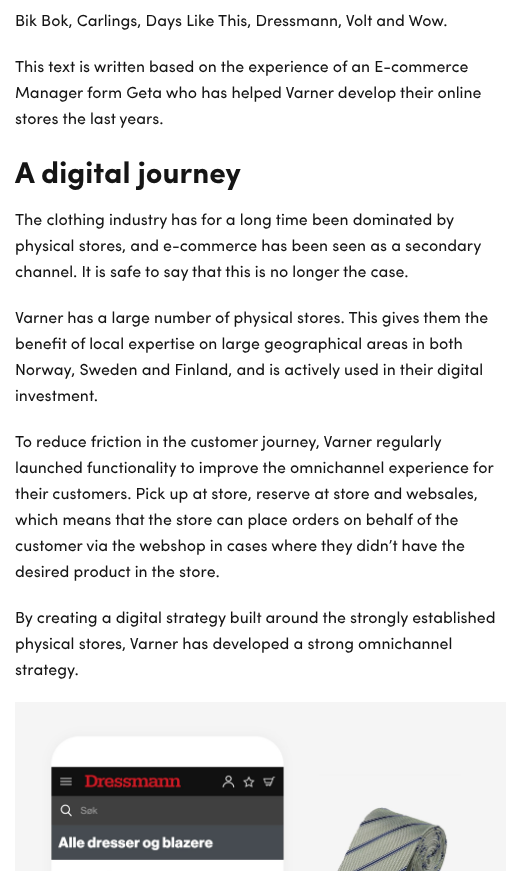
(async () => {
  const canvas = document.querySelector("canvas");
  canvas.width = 521;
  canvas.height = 871;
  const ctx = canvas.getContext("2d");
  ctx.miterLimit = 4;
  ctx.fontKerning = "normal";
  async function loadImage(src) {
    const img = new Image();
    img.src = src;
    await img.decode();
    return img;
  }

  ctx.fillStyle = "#ffffff";
  ctx.fillRect(0, 0, 521, 871);
  ctx.drawImage(await loadImage("img/1.png"), 15, 702, 491, 169);
  ctx.font = "16px Sofia";
  ctx.fillStyle = "#151515";
  for (const [text, x, y] of [
    ["Bik Bok, Carlings, Days Like This, Dressmann, Volt and Wow.", 15, 26],
    ["This text is written based on the experience of an E-commerce", 15, 72],
    ["Manager form Geta who has helped Varner develop their online", 15, 98],
    ["stores the last years.", 15, 124],
  ]) {
    ctx.fillText(text, x, y);
  }
  ctx.font = "bold 30px Sofia";
  ctx.fillText("A digital journey", 15, 183);
  ctx.font = "16px Sofia";
  for (const [text, x, y] of [
    ["The clothing industry has for a long time been dominated by", 15, 225],
    ["physical stores, and e-commerce has been seen as a secondary", 15, 251],
    ["channel. It is safe to say that this is no longer the case.", 15, 277],
    ["Varner has a large number of physical stores. This gives them the", 15, 323],
    ["benefit of local expertise on large geographical areas in both", 15, 349],
    ["Norway, Sweden and Finland, and is actively used in their digital", 15, 375],
    ["investment.", 15, 401],
    ["To reduce friction in the customer journey, Varner regularly", 15, 447],
    ["launched functionality to improve the omnichannel experience for", 15, 473],
    ["their customers. Pick up at store, reserve at store and websales,", 15, 499],
    ["which means that the store can place orders on behalf of the", 15, 525],
    ["customer via the webshop in cases where they didn’t have the", 15, 551],
    ["desired product in the store.", 15, 577],
    ["By creating a digital strategy built around the strongly established", 15, 623],
    ["physical stores, Varner has developed a strong omnichannel", 15, 649],
    ["strategy.", 15, 675],
  ]) {
    ctx.fillText(text, x, y);
  }
})();
